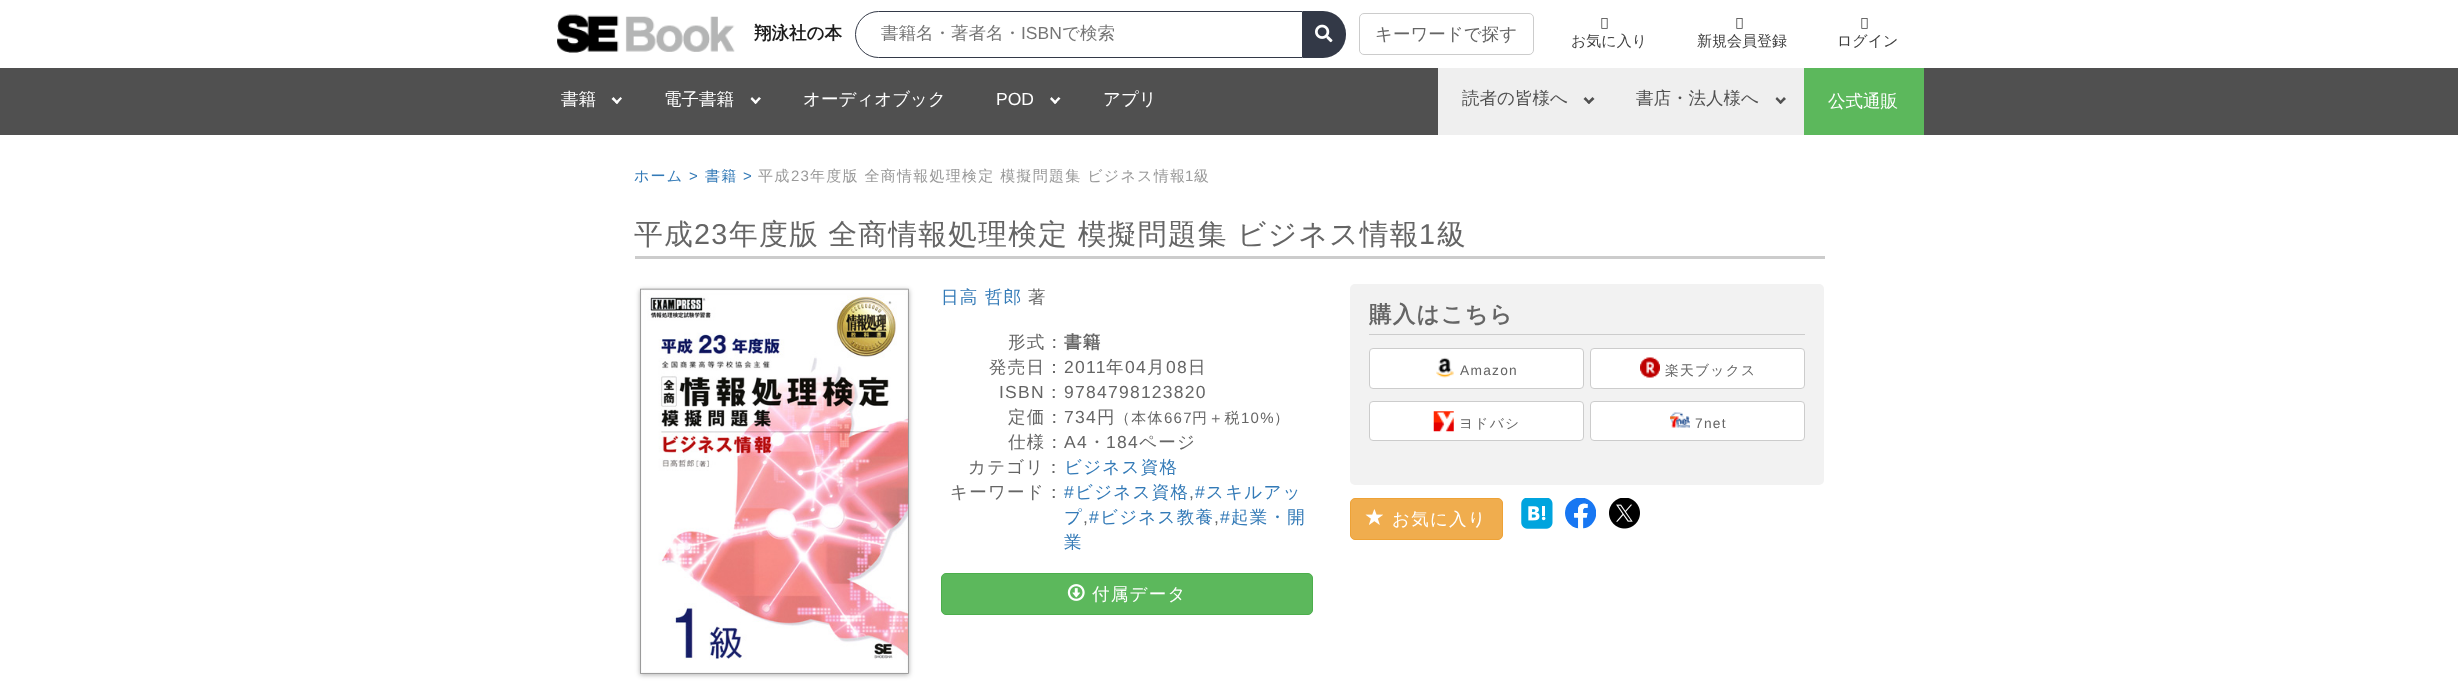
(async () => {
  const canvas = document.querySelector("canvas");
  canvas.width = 2458;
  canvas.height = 685;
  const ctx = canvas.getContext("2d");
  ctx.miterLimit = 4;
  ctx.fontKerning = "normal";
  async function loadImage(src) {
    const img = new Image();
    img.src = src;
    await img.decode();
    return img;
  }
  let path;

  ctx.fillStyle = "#ffffff";
  ctx.fillRect(0, 0, 2458, 685);
  ctx.drawImage(await loadImage("img/1.png"), 557, 14, 178, 39);
  ctx.beginPath();
  ctx.roundRect(855.5, 11.5, 447, 46, [23, 0, 0, 23]);
  ctx.strokeStyle = "#333947";
  ctx.stroke();
  ctx.fillStyle = "#333947";
  ctx.beginPath();
  ctx.roundRect(1303, 11, 43, 47, [0, 23, 23, 0]);
  ctx.fill();
  ctx.drawImage(await loadImage("img/2.png"), 1315, 24, 18, 19);
  ctx.beginPath();
  ctx.roundRect(1359.5, 13.5, 174, 41, 4.5);
  ctx.strokeStyle = "#cccccc";
  ctx.stroke();
  ctx.drawImage(await loadImage("img/3.png"), 1601, 18, 7, 11);
  ctx.drawImage(await loadImage("img/3.png"), 1736, 18, 7, 11);
  ctx.drawImage(await loadImage("img/3.png"), 1861, 18, 7, 11);
  ctx.fillStyle = "#505050";
  ctx.fillRect(0, 68, 2458, 67);
  ctx.fillStyle = "#ffffff";
  path = new Path2D("M622 98.5L617 104L615 102.5L620.5 97Z");
  ctx.fill(path);
  path = new Path2D("M618.5 102.5L617 104L611.5 99L613.5 97Z");
  ctx.fill(path);
  path = new Path2D("M761 98.5L755.5 104L754 102.5L759 97Z");
  ctx.fill(path);
  path = new Path2D("M757.5 102.5L755.5 104L750.5 99L752 97Z");
  ctx.fill(path);
  path = new Path2D("M1060.5 98.5L1055 104L1053.5 102.5L1058.5 97Z");
  ctx.fill(path);
  path = new Path2D("M1057 102.5L1055 104L1050 99L1051.5 97Z");
  ctx.fill(path);
  ctx.fillStyle = "#efefef";
  ctx.fillRect(1438, 68, 366, 67);
  ctx.fillStyle = "#505050";
  path = new Path2D("M1594.5 99L1589 104L1587 102.5L1592.5 97Z");
  ctx.fill(path);
  path = new Path2D("M1590.5 102.5L1589 104L1583.5 99L1585.5 97Z");
  ctx.fill(path);
  path = new Path2D("M1786 99L1780.5 104L1779 102.5L1784 97Z");
  ctx.fill(path);
  path = new Path2D("M1782.5 102.5L1780.5 104L1775.5 99L1777 97Z");
  ctx.fill(path);
  ctx.fillStyle = "#5cb85c";
  ctx.fillRect(1804, 68, 120, 67);
  ctx.fillStyle = "#cccccc";
  ctx.fillRect(635, 256, 1190, 3);
  ctx.fillStyle = "rgba(0, 0, 0, 0.3)";
  ctx.filter = "blur(2.5px)";
  ctx.beginPath();
  ctx.rect(640, 290, 269, 385);
  ctx.fill();
  ctx.filter = "none";
  ctx.drawImage(await loadImage("img/4.png"), 640, 288, 269, 386);
  ctx.fillStyle = "#5cb85c";
  ctx.beginPath();
  ctx.roundRect(941.5, 573.5, 371, 41, 4.5);
  ctx.fill();
  ctx.strokeStyle = "#4cae4c";
  ctx.stroke();
  ctx.drawImage(await loadImage("img/5.png"), 1067, 584, 18, 17);
  ctx.fillStyle = "#f2f2f2";
  ctx.beginPath();
  ctx.roundRect(1350, 284, 474, 201, 5);
  ctx.fill();
  ctx.fillStyle = "#cccccc";
  ctx.fillRect(1369, 334, 436, 1);
  ctx.fillStyle = "#ffffff";
  ctx.beginPath();
  ctx.roundRect(1369.5, 348.5, 214, 40, 3.5);
  ctx.fill();
  ctx.strokeStyle = "#cccccc";
  ctx.stroke();
  ctx.drawImage(await loadImage("img/6.png"), 1436, 357, 18, 21);
  ctx.beginPath();
  ctx.roundRect(1369.5, 401.5, 214, 39, 3.5);
  ctx.fill();
  ctx.stroke();
  ctx.drawImage(await loadImage("img/7.png"), 1433, 411, 21, 21);
  ctx.beginPath();
  ctx.roundRect(1590.5, 348.5, 214, 40, 3.5);
  ctx.fill();
  ctx.stroke();
  ctx.drawImage(await loadImage("img/8.png"), 1640, 357, 20, 21);
  ctx.beginPath();
  ctx.roundRect(1590.5, 401.5, 214, 39, 3.5);
  ctx.fill();
  ctx.stroke();
  ctx.drawImage(await loadImage("img/9.png"), 1670, 412, 20, 16);
  ctx.fillStyle = "#f0ad4e";
  ctx.beginPath();
  ctx.roundRect(1350.5, 498.5, 152, 41, 4.5);
  ctx.fill();
  ctx.strokeStyle = "#eea236";
  ctx.stroke();
  ctx.drawImage(await loadImage("img/10.png"), 1365, 509, 18, 16);
  ctx.drawImage(await loadImage("img/11.png"), 1521, 498, 32, 31);
  ctx.drawImage(await loadImage("img/12.png"), 1565, 498, 31, 31);
  ctx.drawImage(await loadImage("img/13.png"), 1609, 498, 31, 31);
  ctx.font = "bold 17.5px WenQuanYi Zen Hei";
  ctx.fillStyle = "#1b1b1b";
  ctx.fillText("翔泳社の本", 754, 39);
  ctx.font = "500 17.5px WenQuanYi Zen Hei";
  ctx.fillStyle = "#757575";
  ctx.fillText("書籍名・著者名・", 881, 39);
  ctx.font = "17.5px Liberation Sans";
  ctx.fillText("ISBN", 1021, 39);
  ctx.font = "500 17.5px WenQuanYi Zen Hei";
  ctx.fillText("で検索", 1062, 39);
  ctx.fillStyle = "#656565";
  ctx.fillText("キーワードで探す", 1375, 40);
  ctx.font = "500 15px WenQuanYi Zen Hei";
  ctx.fillStyle = "#3e3e3e";
  for (const [text, x, y] of [
    ["お気に入り", 1571, 46],
    ["新規会員登録", 1697, 46],
    ["ログイン", 1837, 46],
  ]) {
    ctx.fillText(text, x, y);
  }
  ctx.font = "500 17.5px WenQuanYi Zen Hei";
  ctx.fillStyle = "#ffffff";
  for (const [text, x, y] of [
    ["書籍", 561, 105],
    ["電子書籍", 664, 105],
    ["オーディオブック", 803, 105],
  ]) {
    ctx.fillText(text, x, y);
  }
  ctx.font = "17.5px Liberation Sans";
  ctx.fillText("POD", 996, 105);
  ctx.font = "500 17.5px WenQuanYi Zen Hei";
  ctx.fillText("アプリ", 1103, 105);
  ctx.fillStyle = "#505050";
  ctx.fillText("読者の皆様へ", 1462, 104);
  ctx.fillText("書店・法人様へ", 1636, 104);
  ctx.fillStyle = "#ffffff";
  ctx.fillText("公式通販", 1828, 107);
  ctx.letterSpacing = "1.25px";
  ctx.font = "500 15px WenQuanYi Zen Hei";
  ctx.fillStyle = "#337ab7";
  ctx.fillText("ホーム", 634, 181);
  ctx.font = "15px Liberation Sans";
  ctx.fillText(">", 689, 181);
  ctx.font = "500 15px WenQuanYi Zen Hei";
  ctx.fillText("書籍", 705, 181);
  ctx.font = "15px Liberation Sans";
  ctx.fillText(">", 743, 181);
  ctx.font = "500 15px WenQuanYi Zen Hei";
  ctx.fillStyle = "#999999";
  ctx.fillText("平成", 758, 181);
  ctx.font = "15px Liberation Sans";
  ctx.fillText("23", 791, 181);
  ctx.font = "500 15px WenQuanYi Zen Hei";
  ctx.fillText("年度版 全商情報処理検定 模擬問題集 ビジネス情報", 810, 181);
  ctx.font = "15px Liberation Sans";
  ctx.fillText("1", 1185, 181);
  ctx.font = "500 15px WenQuanYi Zen Hei";
  ctx.fillText("級", 1194, 181);
  ctx.font = "500 28.75px WenQuanYi Zen Hei";
  ctx.fillStyle = "#656565";
  ctx.fillText("平成", 634, 244);
  ctx.font = "28.75px Liberation Sans";
  ctx.fillText("23", 694, 244);
  ctx.wordSpacing = "-0.5px";
  ctx.font = "500 28.75px WenQuanYi Zen Hei";
  ctx.fillText("年度版 全商情報処理検定 模擬問題集 ビジネス情報", 729, 244);
  ctx.wordSpacing = "0px";
  ctx.font = "28.75px Liberation Sans";
  ctx.fillText("1", 1419, 244);
  ctx.font = "500 28.75px WenQuanYi Zen Hei";
  ctx.fillText("級", 1437, 244);
  ctx.font = "500 17.5px WenQuanYi Zen Hei";
  ctx.fillStyle = "#337ab7";
  ctx.fillText("日高 哲郎", 941, 303);
  ctx.fillStyle = "#656565";
  ctx.fillText("著", 1028, 303);
  ctx.fillText("形式：", 1008, 348);
  ctx.font = "bold 17.5px WenQuanYi Zen Hei";
  ctx.fillText("書籍", 1064, 348);
  ctx.font = "500 17.5px WenQuanYi Zen Hei";
  ctx.fillText("発売日：", 989, 373);
  ctx.font = "17.5px Liberation Sans";
  ctx.fillText("2011", 1064, 373);
  ctx.font = "500 17.5px WenQuanYi Zen Hei";
  ctx.fillText("年", 1106, 373);
  ctx.font = "17.5px Liberation Sans";
  ctx.fillText("04", 1125, 373);
  ctx.font = "500 17.5px WenQuanYi Zen Hei";
  ctx.fillText("月", 1147, 373);
  ctx.font = "17.5px Liberation Sans";
  ctx.fillText("08", 1166, 373);
  ctx.font = "500 17.5px WenQuanYi Zen Hei";
  ctx.fillText("日", 1188, 373);
  ctx.font = "17.5px Liberation Sans";
  ctx.fillText("ISBN", 999, 398);
  ctx.font = "500 17.5px WenQuanYi Zen Hei";
  ctx.fillText("：", 1045, 398);
  ctx.font = "17.5px Liberation Sans";
  ctx.fillText("9784798123820", 1064, 398);
  ctx.font = "500 17.5px WenQuanYi Zen Hei";
  ctx.fillText("定価：", 1008, 423);
  ctx.font = "17.5px Liberation Sans";
  ctx.fillText("734", 1064, 423);
  ctx.font = "500 17.5px WenQuanYi Zen Hei";
  ctx.fillText("円", 1097, 423);
  ctx.font = "500 15px WenQuanYi Zen Hei";
  ctx.fillText("（本体", 1115, 423);
  ctx.font = "15px Liberation Sans";
  ctx.fillText("667", 1164, 423);
  ctx.font = "500 15px WenQuanYi Zen Hei";
  ctx.fillText("円＋税", 1192, 423);
  ctx.font = "15px Liberation Sans";
  ctx.fillText("10%", 1241, 423);
  ctx.font = "500 15px WenQuanYi Zen Hei";
  ctx.fillText("）", 1274, 423);
  ctx.font = "500 17.5px WenQuanYi Zen Hei";
  ctx.fillText("仕様：", 1008, 448);
  ctx.font = "17.5px Liberation Sans";
  ctx.fillText("A4", 1064, 448);
  ctx.font = "500 17.5px WenQuanYi Zen Hei";
  ctx.fillText("・", 1088, 448);
  ctx.font = "17.5px Liberation Sans";
  ctx.fillText("184", 1106, 448);
  ctx.font = "500 17.5px WenQuanYi Zen Hei";
  ctx.fillText("ページ", 1139, 448);
  ctx.fillText("カテゴリ：", 968, 473);
  ctx.fillStyle = "#337ab7";
  ctx.fillText("ビジネス資格", 1064, 473);
  ctx.fillStyle = "#656565";
  ctx.fillText("キーワード：", 950, 498);
  ctx.font = "17.5px Liberation Sans";
  ctx.fillStyle = "#337ab7";
  ctx.fillText("#", 1064, 498);
  ctx.font = "500 17.5px WenQuanYi Zen Hei";
  ctx.fillText("ビジネス資格", 1075, 498);
  ctx.font = "17.5px Liberation Sans";
  ctx.fillText("#", 1195, 498);
  ctx.font = "500 17.5px WenQuanYi Zen Hei";
  ctx.fillText("スキルアッ", 1206, 498);
  ctx.font = "17.5px Liberation Sans";
  ctx.fillStyle = "#656565";
  ctx.fillText(",", 1189, 498);
  ctx.font = "500 17.5px WenQuanYi Zen Hei";
  ctx.fillStyle = "#337ab7";
  ctx.fillText("プ", 1064, 523);
  ctx.font = "17.5px Liberation Sans";
  ctx.fillText("#", 1089, 523);
  ctx.font = "500 17.5px WenQuanYi Zen Hei";
  ctx.fillText("ビジネス教養", 1100, 523);
  ctx.font = "17.5px Liberation Sans";
  ctx.fillText("#", 1220, 523);
  ctx.font = "500 17.5px WenQuanYi Zen Hei";
  ctx.fillText("起業・開", 1231, 523);
  ctx.font = "17.5px Liberation Sans";
  ctx.fillStyle = "#656565";
  ctx.fillText(",", 1083, 523);
  ctx.fillText(",", 1214, 523);
  ctx.font = "500 17.5px WenQuanYi Zen Hei";
  ctx.fillStyle = "#337ab7";
  ctx.fillText("業", 1064, 548);
  ctx.fillStyle = "#ffffff";
  ctx.fillText("付属データ", 1092, 600);
  ctx.font = "bold 22.5px WenQuanYi Zen Hei";
  ctx.fillStyle = "#656565";
  ctx.fillText("購入はこちら", 1369, 322);
  ctx.font = "13.75px Liberation Sans";
  ctx.fillText("Amazon", 1460, 375);
  ctx.font = "500 13.75px WenQuanYi Zen Hei";
  ctx.fillText("ヨドバシ", 1459, 428);
  ctx.fillText("楽天ブックス", 1665, 375);
  ctx.font = "13.75px Liberation Sans";
  ctx.fillText("7net", 1695, 428);
  ctx.font = "500 17.5px WenQuanYi Zen Hei";
  ctx.fillStyle = "#ffffff";
  ctx.fillText("お気に入り", 1392, 525);
})();
